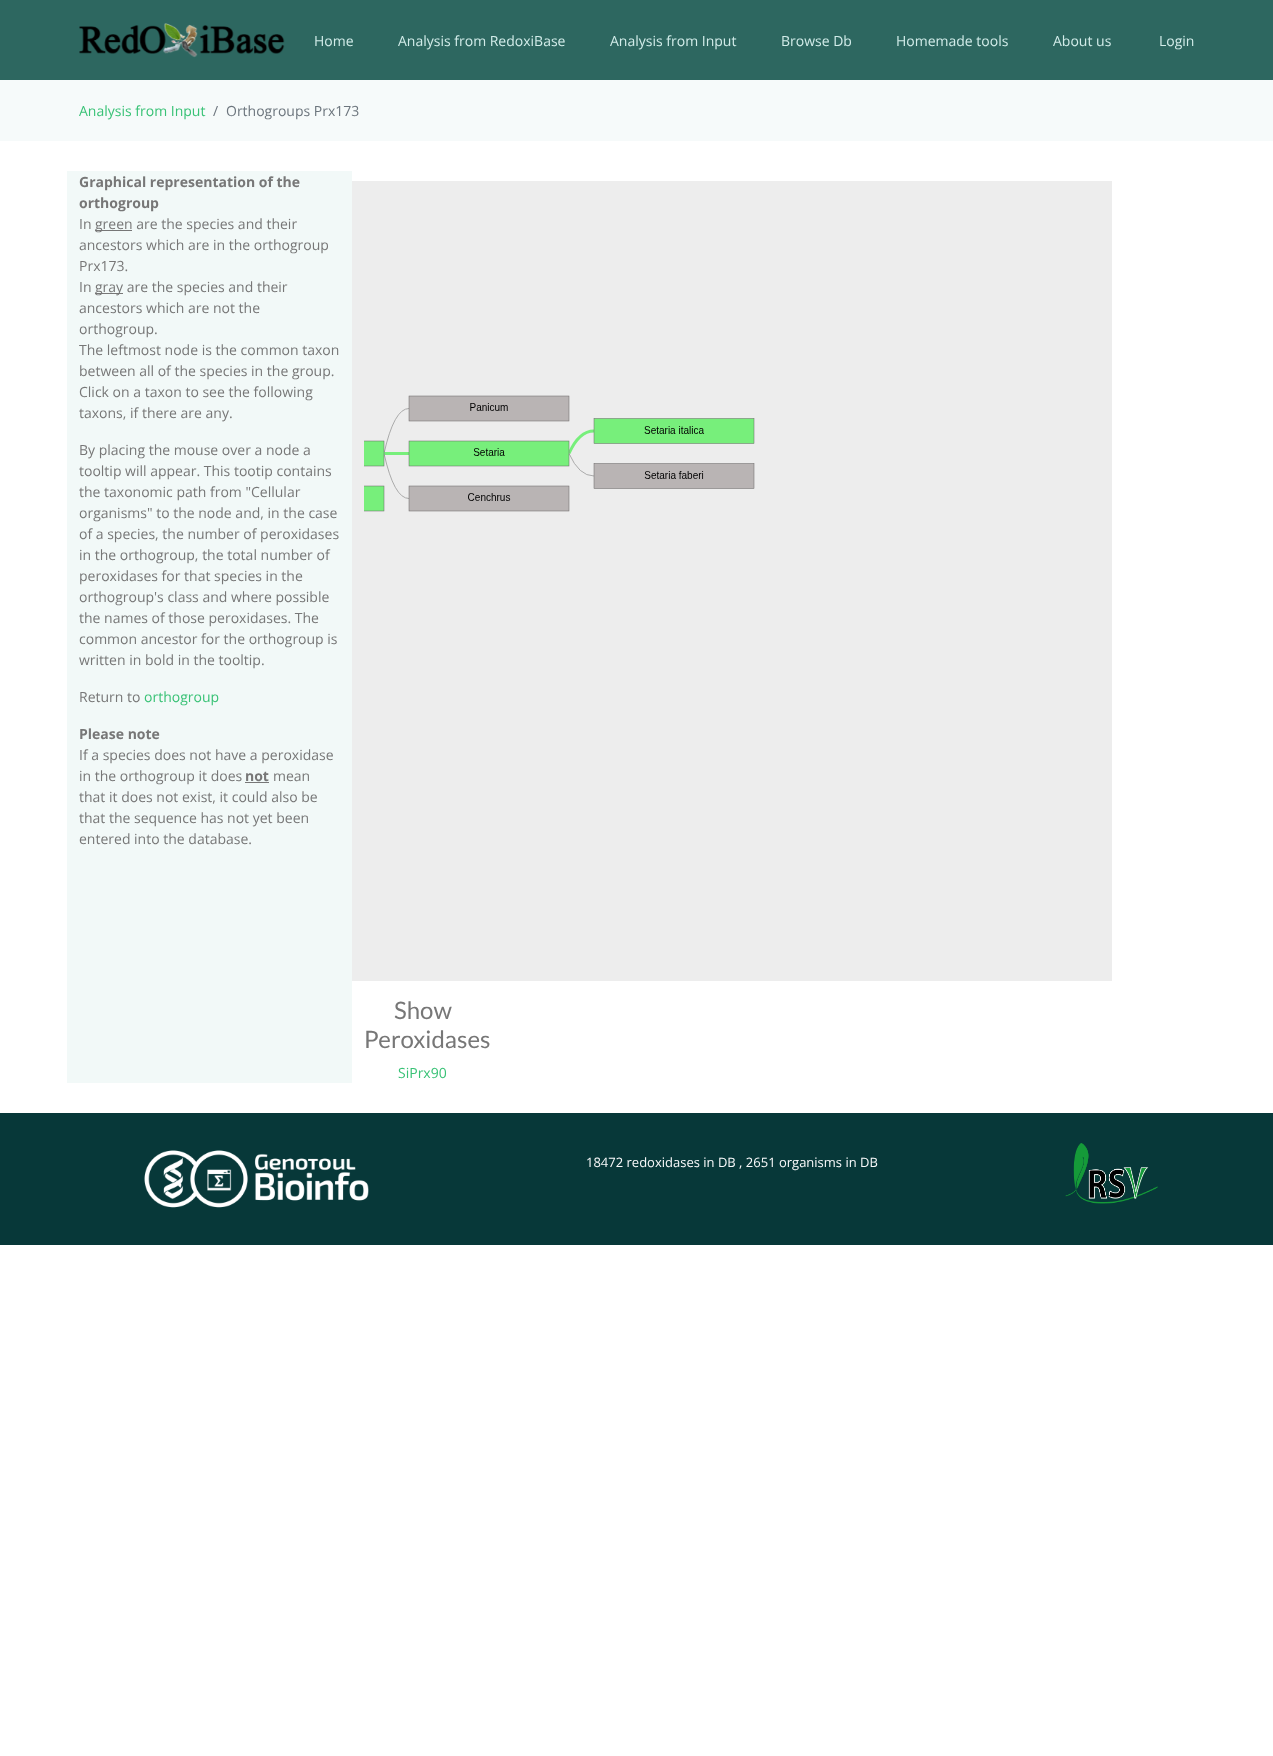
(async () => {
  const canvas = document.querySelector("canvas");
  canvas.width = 1273;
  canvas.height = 1756;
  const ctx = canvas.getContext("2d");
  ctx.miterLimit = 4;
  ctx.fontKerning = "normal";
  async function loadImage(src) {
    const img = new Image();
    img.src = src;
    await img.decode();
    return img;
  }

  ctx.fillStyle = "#ffffff";
  ctx.fillRect(0, 0, 1273, 1756);
  ctx.fillStyle = "#2d6760";
  ctx.fillRect(0, 0, 1273, 80);
  ctx.drawImage(await loadImage("img/1.png"), 79, 23, 206, 35);
  for (const [x, y, w, h, color] of [
    [0, 80, 1273, 61, "#f6fafa"],
    [67, 171, 285, 912, "#f2f9f8"],
    [95, 230, 37, 1, "#777777"],
    [95, 293, 28, 1, "#777777"],
    [245, 782, 24, 1, "#777777"],
    [352, 181, 760, 800, "#ededed"],
  ]) {
    ctx.fillStyle = color;
    ctx.fillRect(x, y, w, h);
  }
  ctx.drawImage(await loadImage("img/2.png"), 364, 395, 391, 117);
  ctx.fillStyle = "#073839";
  ctx.fillRect(0, 1113, 1273, 132);
  ctx.drawImage(await loadImage("img/3.png"), 144, 1150, 225, 58);
  ctx.drawImage(await loadImage("img/4.png"), 1065, 1143, 93, 61);
  ctx.font = "14px Open Sans";
  ctx.fillStyle = "#d2ece9";
  for (const [text, x, y] of [
    ["Home", 314, 46],
    ["Analysis from RedoxiBase", 398, 46],
    ["Analysis from Input", 610, 46],
    ["Browse Db", 781, 46],
    ["Homemade tools", 896, 46],
    ["About us", 1053, 46],
    ["Login", 1159, 46],
  ]) {
    ctx.fillText(text, x, y);
  }
  ctx.fillStyle = "#39c276";
  ctx.fillText("Analysis from Input", 79, 116);
  ctx.fillStyle = "#6c757d";
  ctx.fillText("/", 213, 116);
  ctx.fillText("Orthogroups Prx173", 226, 116);
  ctx.font = "bold 14px Open Sans";
  ctx.fillStyle = "#777777";
  ctx.fillText("Graphical representation of the", 79, 187);
  ctx.fillText("orthogroup", 79, 208);
  ctx.font = "14px Open Sans";
  for (const [text, x, y] of [
    ["In", 79, 229],
    ["green are the species and their", 95, 229],
    ["ancestors which are in the orthogroup", 79, 250],
    ["Prx173.", 79, 271],
    ["In", 79, 292],
    ["gray are the species and their", 95, 292],
    ["ancestors which are not the", 79, 313],
    ["orthogroup.", 79, 334],
    ["The leftmost node is the common taxon", 79, 355],
    ["between all of the species in the group.", 79, 376],
    ["Click on a taxon to see the following", 79, 397],
    ["taxons, if there are any.", 79, 418],
    ["By placing the mouse over a node a", 79, 455],
    ["tooltip will appear. This tootip contains", 79, 476],
    ["the taxonomic path from \"Cellular", 79, 497],
    ["organisms\" to the node and, in the case", 79, 518],
    ["of a species, the number of peroxidases", 79, 539],
    ["in the orthogroup, the total number of", 79, 560],
    ["peroxidases for that species in the", 79, 581],
    ["orthogroup's class and where possible", 79, 602],
    ["the names of those peroxidases. The", 79, 623],
    ["common ancestor for the orthogroup is", 79, 644],
    ["written in bold in the tooltip.", 79, 665],
    ["Return to", 79, 702],
  ]) {
    ctx.fillText(text, x, y);
  }
  ctx.fillStyle = "#39c276";
  ctx.fillText("orthogroup", 144, 702);
  ctx.font = "bold 14px Open Sans";
  ctx.fillStyle = "#777777";
  ctx.fillText("Please note", 79, 739);
  ctx.font = "14px Open Sans";
  ctx.fillText("If a species does not have a peroxidase", 79, 760);
  ctx.fillText("in the orthogroup it does", 79, 781);
  ctx.font = "bold 14px Open Sans";
  ctx.fillText("not", 245, 781);
  ctx.font = "14px Open Sans";
  for (const [text, x, y] of [
    ["mean", 273, 781],
    ["that it does not exist, it could also be", 79, 802],
    ["that the sequence has not yet been", 79, 823],
    ["entered into the database.", 79, 844],
  ]) {
    ctx.fillText(text, x, y);
  }
  ctx.font = "24px Lato";
  ctx.fillText("Show", 394, 1019);
  ctx.fillText("Peroxidases", 364, 1048);
  ctx.font = "14px Open Sans";
  ctx.fillStyle = "#39c276";
  ctx.fillText("SiPrx90", 398, 1078);
  ctx.font = "13px Open Sans";
  ctx.fillStyle = "#f8f9fa";
  ctx.fillText("18472 redoxidases in DB , 2651 organisms in DB", 586, 1167);
})();
